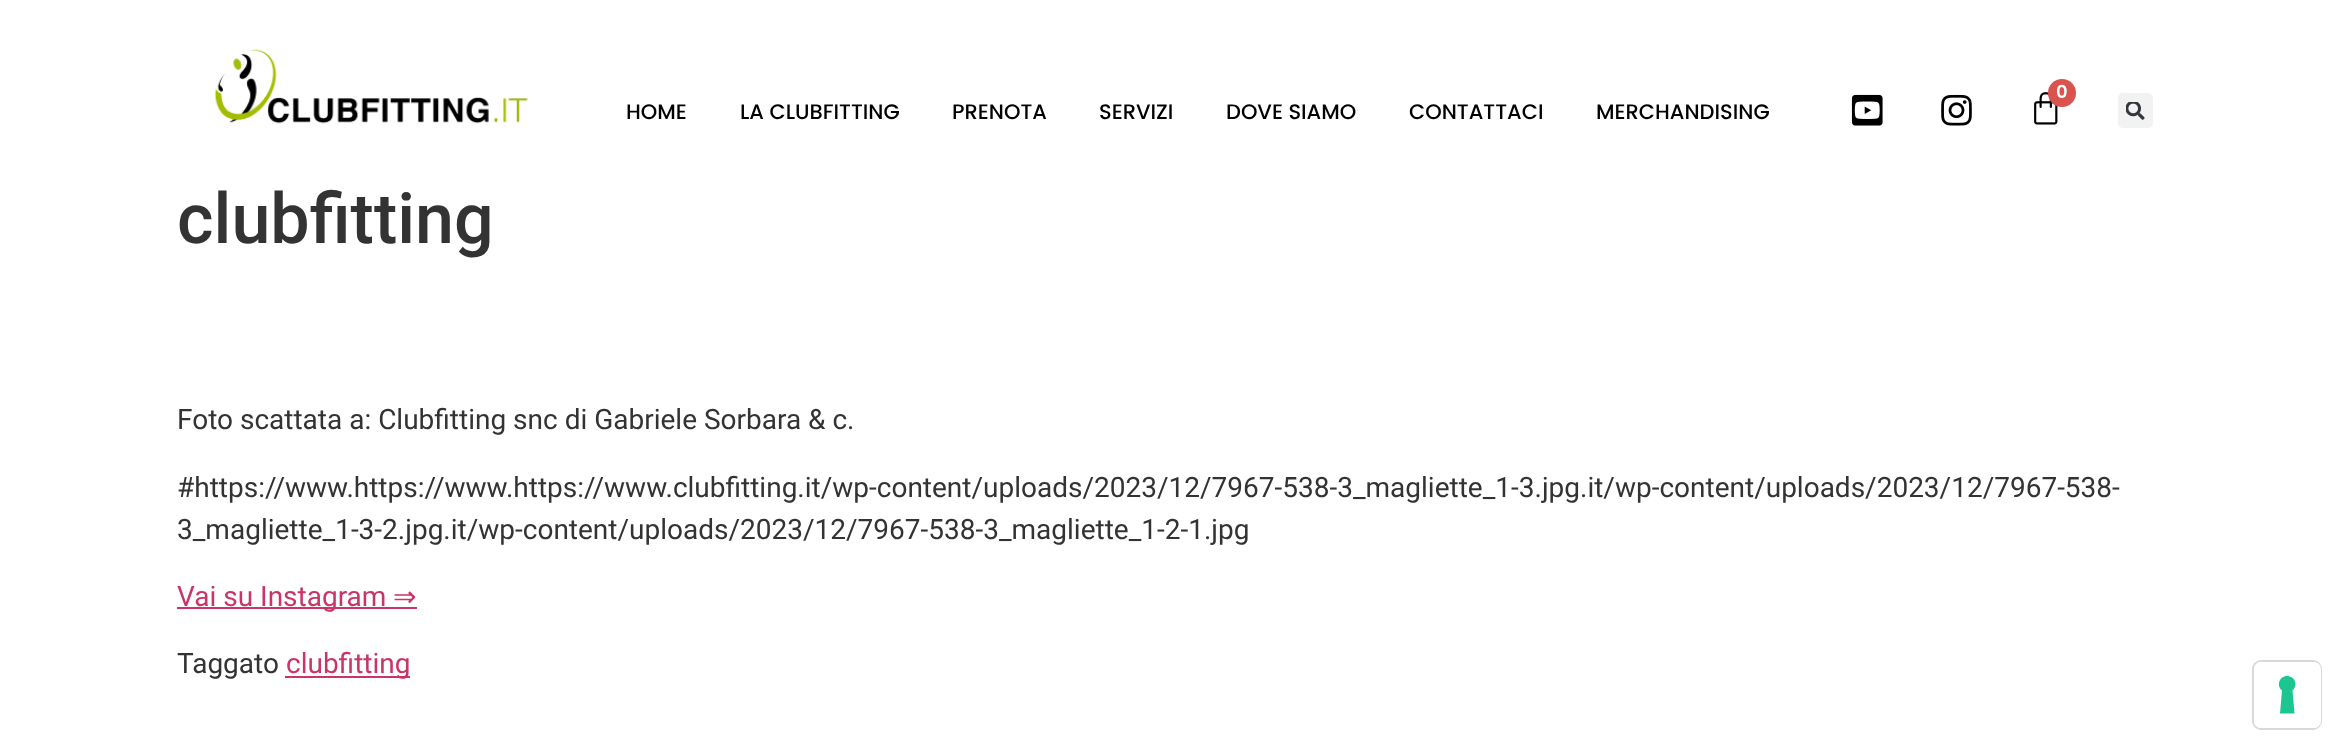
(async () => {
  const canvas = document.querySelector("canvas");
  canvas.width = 2348;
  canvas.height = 756;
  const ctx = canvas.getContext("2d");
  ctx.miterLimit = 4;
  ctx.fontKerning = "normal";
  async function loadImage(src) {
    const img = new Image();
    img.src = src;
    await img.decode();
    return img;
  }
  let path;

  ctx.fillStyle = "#ffffff";
  ctx.fillRect(0, 0, 2348, 756);
  ctx.drawImage(await loadImage("img/1.png"), 214, 49, 314, 75);
  ctx.drawImage(await loadImage("img/2.png"), 2034, 92, 24, 33);
  ctx.fillStyle = "#d9534f";
  ctx.beginPath();
  ctx.arc(2062, 93, 14, 0, Math.PI * 2);
  ctx.fill();
  ctx.drawImage(await loadImage("img/3.png"), 1851, 94, 32, 32);
  ctx.drawImage(await loadImage("img/4.png"), 1941, 94, 31, 32);
  ctx.fillStyle = "#f2f2f2";
  ctx.beginPath();
  ctx.roundRect(2118, 93, 35, 35, 5);
  ctx.fill();
  ctx.drawImage(await loadImage("img/5.png"), 2126, 102, 19, 18);
  ctx.fillStyle = "#cc3366";
  ctx.fillRect(177, 607, 240, 2);
  ctx.fillRect(285, 676, 125, 2);
  ctx.beginPath();
  ctx.roundRect(2253, 661, 68, 68, 8);
  ctx.strokeStyle = "#d9d9d9";
  ctx.lineWidth = 2;
  ctx.stroke();
  ctx.fillStyle = "#ffffff";
  ctx.beginPath();
  ctx.roundRect(2254, 662, 67, 66, 7);
  ctx.fill();
  ctx.fillStyle = "#1cc691";
  path = new Path2D("M2287 676C2295 676 2298.5 685.5 2292.5 690.5L2294.5 713.5H2280L2282 690.5C2276 685.5 2279.5 676 2287 676Z");
  ctx.fill(path, "evenodd");
  ctx.font = "600 18px Poppins";
  ctx.fillStyle = "#ffffff";
  ctx.fillText("0", 2056, 98);
  ctx.font = "500 21px Poppins";
  ctx.fillStyle = "#000000";
  for (const [text, x, y] of [
    ["HOME", 626, 119],
    ["LA CLUBFITTING", 740, 119],
    ["PRENOTA", 952, 119],
    ["SERVIZI", 1099, 119],
    ["DOVE SIAMO", 1226, 119],
    ["CONTATTACI", 1409, 119],
    ["MERCHANDISING", 1596, 119],
  ]) {
    ctx.fillText(text, x, y);
  }
  ctx.font = "500 70px Roboto";
  ctx.fillStyle = "#333333";
  ctx.fillText("clubfitting", 177, 243);
  ctx.font = "28px Roboto";
  for (const [text, x, y] of [
    ["Foto scattata a: Clubfitting snc di Gabriele Sorbara & c.", 177, 429],
    ["#https://www.https://www.https://www.clubfitting.it/wp-content/uploads/2023/12/7967-538-3_magliette_1-3.jpg.it/wp-content/uploads/2023/12/7967-538-", 177, 497],
    ["3_magliette_1-3-2.jpg.it/wp-content/uploads/2023/12/7967-538-3_magliette_1-2-1.jpg", 177, 539],
  ]) {
    ctx.fillText(text, x, y);
  }
  ctx.fillStyle = "#cc3366";
  ctx.fillText("Vai su Instagram", 177, 606);
  ctx.font = "28px DejaVu Sans";
  ctx.fillText("⇒", 393, 606);
  ctx.font = "28px Roboto";
  ctx.fillStyle = "#333333";
  ctx.fillText("Taggato", 177, 673);
  ctx.fillStyle = "#cc3366";
  ctx.fillText("clubfitting", 286, 673);
})();
